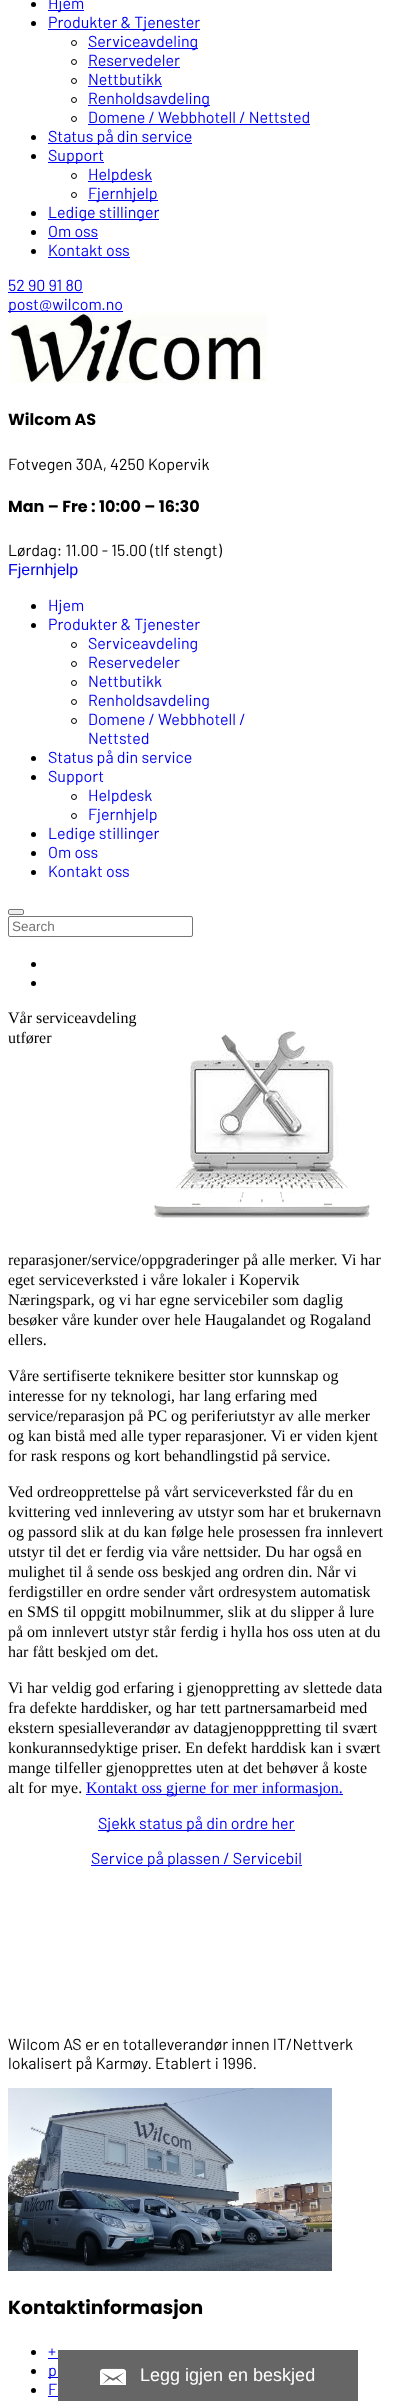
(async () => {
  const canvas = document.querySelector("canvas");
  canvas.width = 393;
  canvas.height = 2401;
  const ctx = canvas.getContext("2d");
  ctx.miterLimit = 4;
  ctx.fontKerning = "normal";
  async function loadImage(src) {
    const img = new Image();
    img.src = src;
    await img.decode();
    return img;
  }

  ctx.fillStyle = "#ffffff";
  ctx.fillRect(0, 0, 393, 2401);
  ctx.fillStyle = "#000000";
  ctx.beginPath();
  ctx.arc(33.5, 4.5, 2.5, 0, Math.PI * 2);
  ctx.fill();
  ctx.fillStyle = "#0000ee";
  ctx.fillRect(48, 10, 36, 1);
  ctx.fillStyle = "#000000";
  ctx.beginPath();
  ctx.arc(33.5, 23.5, 2.5, 0, Math.PI * 2);
  ctx.fill();
  ctx.fillStyle = "#0000ee";
  ctx.fillRect(48, 29, 152, 1);
  ctx.beginPath();
  ctx.arc(74, 43, 2.5, 0, Math.PI * 2);
  ctx.strokeStyle = "#000000";
  ctx.stroke();
  ctx.fillRect(88, 48, 110, 1);
  ctx.beginPath();
  ctx.arc(74, 62, 2.5, 0, Math.PI * 2);
  ctx.stroke();
  ctx.fillRect(88, 67, 92, 1);
  ctx.beginPath();
  ctx.arc(74, 81, 2.5, 0, Math.PI * 2);
  ctx.stroke();
  ctx.fillRect(88, 86, 74, 1);
  ctx.beginPath();
  ctx.arc(74, 100, 2.5, 0, Math.PI * 2);
  ctx.stroke();
  ctx.fillRect(88, 105, 122, 1);
  ctx.beginPath();
  ctx.arc(74, 119, 2.5, 0, Math.PI * 2);
  ctx.stroke();
  ctx.fillRect(88, 124, 222, 1);
  ctx.fillStyle = "#000000";
  ctx.beginPath();
  ctx.arc(33.5, 137.5, 2.5, 0, Math.PI * 2);
  ctx.fill();
  ctx.fillStyle = "#0000ee";
  ctx.fillRect(48, 143, 144, 1);
  ctx.fillStyle = "#000000";
  ctx.beginPath();
  ctx.arc(33.5, 156.5, 2.5, 0, Math.PI * 2);
  ctx.fill();
  ctx.fillStyle = "#0000ee";
  ctx.fillRect(48, 162, 56, 1);
  ctx.beginPath();
  ctx.arc(74, 176, 2.5, 0, Math.PI * 2);
  ctx.stroke();
  ctx.fillRect(88, 181, 64, 1);
  ctx.beginPath();
  ctx.arc(74, 195, 2.5, 0, Math.PI * 2);
  ctx.stroke();
  ctx.fillRect(88, 200, 70, 1);
  ctx.fillStyle = "#000000";
  ctx.beginPath();
  ctx.arc(33.5, 213.5, 2.5, 0, Math.PI * 2);
  ctx.fill();
  ctx.fillStyle = "#0000ee";
  ctx.fillRect(48, 219, 111, 1);
  ctx.fillStyle = "#000000";
  ctx.beginPath();
  ctx.arc(33.5, 232.5, 2.5, 0, Math.PI * 2);
  ctx.fill();
  ctx.fillStyle = "#0000ee";
  ctx.fillRect(48, 238, 50, 1);
  ctx.fillStyle = "#000000";
  ctx.beginPath();
  ctx.arc(33.5, 251.5, 2.5, 0, Math.PI * 2);
  ctx.fill();
  for (const [x, y, w, h, color] of [
    [48, 257, 82, 1, "#0000ee"],
    [8, 292, 75, 1, "#0000ee"],
    [8, 311, 115, 1, "#0000ee"],
  ]) {
    ctx.fillStyle = color;
    ctx.fillRect(x, y, w, h);
  }
  ctx.fillStyle = "#000000";
  ctx.beginPath();
  ctx.arc(33.5, 606.5, 2.5, 0, Math.PI * 2);
  ctx.fill();
  ctx.beginPath();
  ctx.arc(33.5, 625.5, 2.5, 0, Math.PI * 2);
  ctx.fill();
  ctx.beginPath();
  ctx.arc(74, 645, 2.5, 0, Math.PI * 2);
  ctx.stroke();
  ctx.beginPath();
  ctx.arc(74, 664, 2.5, 0, Math.PI * 2);
  ctx.stroke();
  ctx.beginPath();
  ctx.arc(74, 683, 2.5, 0, Math.PI * 2);
  ctx.stroke();
  ctx.beginPath();
  ctx.arc(74, 702, 2.5, 0, Math.PI * 2);
  ctx.stroke();
  ctx.beginPath();
  ctx.arc(74, 721, 2.5, 0, Math.PI * 2);
  ctx.stroke();
  ctx.beginPath();
  ctx.arc(33.5, 758.5, 2.5, 0, Math.PI * 2);
  ctx.fill();
  ctx.beginPath();
  ctx.arc(33.5, 777.5, 2.5, 0, Math.PI * 2);
  ctx.fill();
  ctx.beginPath();
  ctx.arc(74, 797, 2.5, 0, Math.PI * 2);
  ctx.stroke();
  ctx.beginPath();
  ctx.arc(74, 816, 2.5, 0, Math.PI * 2);
  ctx.stroke();
  ctx.beginPath();
  ctx.arc(33.5, 834.5, 2.5, 0, Math.PI * 2);
  ctx.fill();
  ctx.beginPath();
  ctx.arc(33.5, 853.5, 2.5, 0, Math.PI * 2);
  ctx.fill();
  ctx.beginPath();
  ctx.arc(33.5, 872.5, 2.5, 0, Math.PI * 2);
  ctx.fill();
  ctx.fillStyle = "#efefef";
  ctx.beginPath();
  ctx.roundRect(8.5, 909.5, 15, 5, 1.5);
  ctx.fill();
  ctx.strokeStyle = "#767676";
  ctx.stroke();
  ctx.beginPath();
  ctx.roundRect(8.5, 916.5, 184, 20, 1.5);
  ctx.stroke();
  ctx.fillStyle = "#000000";
  ctx.beginPath();
  ctx.arc(33.5, 964.5, 2.5, 0, Math.PI * 2);
  ctx.fill();
  ctx.beginPath();
  ctx.arc(33.5, 983.5, 2.5, 0, Math.PI * 2);
  ctx.fill();
  ctx.drawImage(await loadImage("img/2.png"), 154, 1031, 216, 187);
  for (const [x, y, w, h, color] of [
    [86, 1794, 257, 1, "#0000ee"],
    [98, 1830, 197, 1, "#0000ee"],
    [91, 1865, 211, 1, "#0000ee"],
  ]) {
    ctx.fillStyle = color;
    ctx.fillRect(x, y, w, h);
  }
  ctx.drawImage(await loadImage("img/3.png"), 8, 2088, 324, 183);
  ctx.fillStyle = "#000000";
  ctx.beginPath();
  ctx.arc(33.5, 2352.5, 2.5, 0, Math.PI * 2);
  ctx.fill();
  ctx.fillStyle = "#0000ee";
  ctx.fillRect(48, 2358, 10, 1);
  ctx.fillStyle = "#000000";
  ctx.beginPath();
  ctx.arc(33.5, 2371.5, 2.5, 0, Math.PI * 2);
  ctx.fill();
  ctx.fillStyle = "#0000ee";
  ctx.fillRect(48, 2377, 10, 1);
  ctx.fillStyle = "#000000";
  ctx.beginPath();
  ctx.arc(33.5, 2390.5, 2.5, 0, Math.PI * 2);
  ctx.fill();
  ctx.fillStyle = "#0000ee";
  ctx.fillRect(48, 2396, 10, 1);
  ctx.fillStyle = "#666666";
  ctx.fillRect(58, 2350, 300, 51);
  ctx.drawImage(await loadImage("img/4.png"), 100, 2368, 26, 17);
  ctx.font = "16px Barlow";
  ctx.fillStyle = "#0000ee";
  for (const [text, x, y] of [
    ["Hjem", 48, 9],
    ["Produkter & Tjenester", 48, 28],
    ["Serviceavdeling", 88, 47],
    ["Reservedeler", 88, 66],
    ["Nettbutikk", 88, 85],
    ["Renholdsavdeling", 88, 104],
    ["Domene / Webbhotell / Nettsted", 88, 123],
    ["Status på din service", 48, 142],
    ["Support", 48, 161],
    ["Helpdesk", 88, 180],
    ["Fjernhjelp", 88, 199],
    ["Ledige stillinger", 48, 218],
    ["Om oss", 48, 237],
    ["Kontakt oss", 48, 256],
    ["52 90 91 80", 8, 291],
    ["post@wilcom.no", 8, 310],
  ]) {
    ctx.fillText(text, x, y);
  }
  ctx.drawImage(await loadImage("img/1.png"), 8, 313, 259, 70);
  ctx.font = "bold 16px Poppins";
  ctx.fillStyle = "#000000";
  ctx.fillText("Wilcom AS", 8, 425);
  ctx.font = "16px Barlow";
  ctx.fillText("Fotvegen 30A, 4250 Kopervik", 8, 470);
  ctx.font = "bold 16px Poppins";
  ctx.fillText("Man – Fre : 10:00 – 16:30", 8, 512);
  ctx.font = "16px Barlow";
  ctx.fillText("Lørdag: 11.00 - 15.00 (tlf stengt)", 8, 556);
  ctx.font = "16px Liberation Sans";
  ctx.fillStyle = "#0000ee";
  ctx.fillText("Fjernhjelp", 8, 575);
  ctx.font = "16px Barlow";
  for (const [text, x, y] of [
    ["Hjem", 48, 611],
    ["Produkter & Tjenester", 48, 630],
    ["Serviceavdeling", 88, 649],
    ["Reservedeler", 88, 668],
    ["Nettbutikk", 88, 687],
    ["Renholdsavdeling", 88, 706],
    ["Domene / Webbhotell /", 88, 725],
    ["Nettsted", 88, 744],
    ["Status på din service", 48, 763],
    ["Support", 48, 782],
    ["Helpdesk", 88, 801],
    ["Fjernhjelp", 88, 820],
    ["Ledige stillinger", 48, 839],
    ["Om oss", 48, 858],
    ["Kontakt oss", 48, 877],
  ]) {
    ctx.fillText(text, x, y);
  }
  ctx.font = "13.5px Liberation Sans";
  ctx.fillStyle = "#757575";
  ctx.fillText("Search", 12, 931);
  ctx.font = "16px Liberation Serif";
  ctx.fillStyle = "#000000";
  for (const [text, x, y] of [
    ["Vår serviceavdeling", 8, 1023],
    ["utfører", 8, 1043],
    ["reparasjoner/service/oppgraderinger på alle merker. Vi har", 8, 1265],
    ["eget serviceverksted i våre lokaler i Kopervik", 8, 1285],
    ["Næringspark, og vi har egne servicebiler som daglig", 8, 1305],
    ["besøker våre kunder over hele Haugalandet og Rogaland", 8, 1325],
    ["ellers.", 8, 1345],
    ["Våre sertifiserte teknikere besitter stor kunnskap og", 8, 1381],
    ["interesse for ny teknologi, har lang erfaring med", 8, 1401],
    ["service/reparasjon på PC og periferiutstyr av alle merker", 8, 1421],
    ["og kan bistå med alle typer reparasjoner. Vi er viden kjent", 8, 1441],
    ["for rask respons og kort behandlingstid på service.", 8, 1461],
    ["Ved ordreopprettelse på vårt serviceverksted får du en", 8, 1497],
    ["kvittering ved innlevering av utstyr som har et brukernavn", 8, 1517],
    ["og passord slik at du kan følge hele prosessen fra innlevert", 8, 1537],
    ["utstyr til det er ferdig via våre nettsider. Du har også en", 8, 1557],
    ["mulighet til å sende oss beskjed ang ordren din. Når vi", 8, 1577],
    ["ferdigstiller en ordre sender vårt ordresystem automatisk", 8, 1597],
    ["en SMS til oppgitt mobilnummer, slik at du slipper å lure", 8, 1617],
    ["på om innlevert utstyr står ferdig i hylla hos oss uten at du", 8, 1637],
    ["har fått beskjed om det.", 8, 1657],
    ["Vi har veldig god erfaring i gjenoppretting av slettede data", 8, 1693],
    ["fra defekte harddisker, og har tett partnersamarbeid med", 8, 1713],
    ["ekstern spesialleverandør av datagjenopppretting til svært", 8, 1733],
    ["konkurannsedyktige priser. En defekt harddisk kan i svært", 8, 1753],
    ["mange tilfeller gjenopprettes uten at det behøver å koste", 8, 1773],
    ["alt for mye.", 8, 1793],
  ]) {
    ctx.fillText(text, x, y);
  }
  ctx.fillStyle = "#0000ee";
  ctx.fillText("Kontakt oss gjerne for mer informasjon.", 86, 1793);
  ctx.font = "16px Barlow";
  ctx.fillText("Sjekk status på din ordre her", 98, 1829);
  ctx.fillText("Service på plassen / Servicebil", 91, 1864);
  ctx.fillStyle = "#000000";
  ctx.fillText("Wilcom AS er en totalleverandør innen IT/Nettverk", 8, 2050);
  ctx.fillText("lokalisert på Karmøy. Etablert i 1996.", 8, 2069);
  ctx.font = "bold 18.75px Poppins";
  ctx.fillText("Kontaktinformasjon", 8, 2314);
  ctx.font = "16px Barlow";
  ctx.fillStyle = "#0000ee";
  for (const [text, x, y] of [
    ["+", 48, 2357],
    ["p", 48, 2376],
    ["F", 48, 2395],
  ]) {
    ctx.fillText(text, x, y);
  }
  ctx.font = "18px Liberation Sans";
  ctx.fillStyle = "#ffffff";
  ctx.fillText("Legg igjen en beskjed", 140, 2381);
})();
